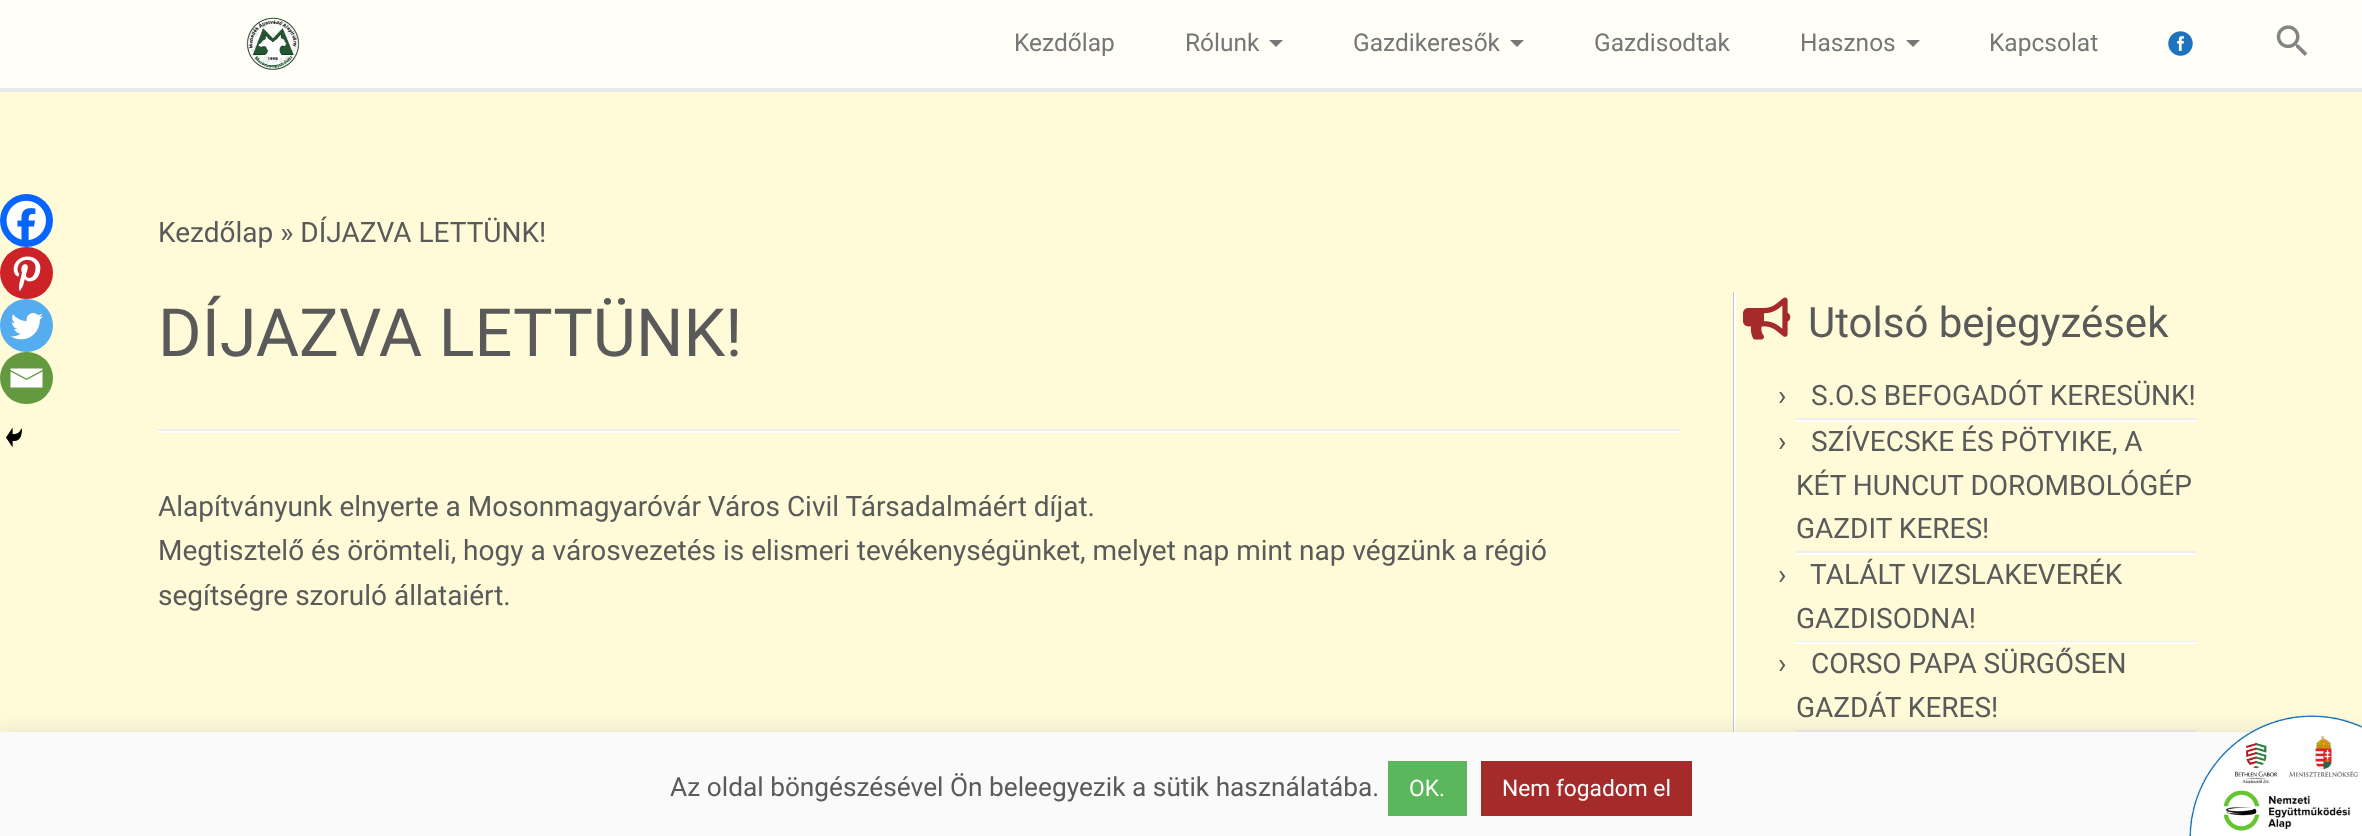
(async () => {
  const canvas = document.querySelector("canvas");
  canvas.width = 2362;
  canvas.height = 836;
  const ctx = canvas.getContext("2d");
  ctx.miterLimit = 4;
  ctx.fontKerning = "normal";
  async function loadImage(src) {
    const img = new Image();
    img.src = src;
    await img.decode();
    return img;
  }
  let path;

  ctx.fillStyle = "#fffbd8";
  ctx.fillRect(0, 0, 2362, 836);
  ctx.fillStyle = "#fffef7";
  ctx.fillRect(0, 0, 2362, 88);
  ctx.fillStyle = "#e9eaee";
  ctx.fillRect(0, 88, 2362, 4);
  ctx.drawImage(await loadImage("img/1.png"), 246, 17, 54, 53);
  ctx.fillStyle = "#777777";
  path = new Path2D("M1269 40H1283L1276 47Z");
  ctx.fill(path);
  path = new Path2D("M1510 40H1524L1517 47Z");
  ctx.fill(path);
  path = new Path2D("M1906 40H1920L1913 47Z");
  ctx.fill(path);
  ctx.drawImage(await loadImage("img/2.png"), 2168, 31, 25, 25);
  ctx.drawImage(await loadImage("img/3.png"), 2276, 25, 32, 31);
  ctx.fillStyle = "#eeeeee";
  ctx.fillRect(158, 429, 1522, 2);
  ctx.fillStyle = "#ffffff";
  ctx.fillRect(158, 431, 1522, 2);
  ctx.fillStyle = "#0765fe";
  ctx.beginPath();
  ctx.arc(26.5, 220.5, 26.5, 0, Math.PI * 2);
  ctx.fill();
  ctx.drawImage(await loadImage("img/4.png"), 6, 200, 40, 40);
  ctx.fillStyle = "#cc2329";
  ctx.beginPath();
  ctx.roundRect(0, 247, 53, 52, 26);
  ctx.fill();
  ctx.drawImage(await loadImage("img/5.png"), 13, 256, 28, 35);
  ctx.fillStyle = "#55acee";
  ctx.beginPath();
  ctx.arc(26.5, 325.5, 26.5, 0, Math.PI * 2);
  ctx.fill();
  ctx.drawImage(await loadImage("img/6.png"), 11, 313, 32, 27);
  ctx.fillStyle = "#649a3f";
  ctx.beginPath();
  ctx.roundRect(0, 352, 53, 52, 26);
  ctx.fill();
  ctx.fillStyle = "#ffffff";
  path = new Path2D("M9 368.5H42.5V370L26.5 378.5L10.5 370V368.5M10.5 371.5L26.5 380L42.5 371.5V387.5H10.5V371.5");
  ctx.fill(path);
  ctx.drawImage(await loadImage("img/7.png"), 6, 427, 16, 21);
  ctx.fillStyle = "#c7c7c7";
  ctx.fillRect(1733, 292, 1, 440);
  ctx.fillStyle = "#ffffff";
  ctx.fillRect(1734, 292, 2, 440);
  ctx.drawImage(await loadImage("img/8.png"), 1743, 297, 48, 43);
  for (const [x, y, w, h, color] of [
    [1796, 418, 400, 2, "#eeeeee"],
    [1796, 420, 400, 2, "#ffffff"],
    [1796, 551, 400, 2, "#eeeeee"],
    [1796, 553, 400, 2, "#ffffff"],
    [1796, 641, 400, 1, "#eeeeee"],
    [1796, 642, 400, 2, "#ffffff"],
    [1796, 730, 400, 2, "#eeeeee"],
  ]) {
    ctx.fillStyle = color;
    ctx.fillRect(x, y, w, h);
  }
  ctx.fillStyle = "rgba(172, 171, 171, 0.3)";
  ctx.filter = "blur(9px)";
  ctx.beginPath();
  ctx.rect(0, 730, 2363, 105);
  ctx.fill();
  ctx.filter = "none";
  for (const [x, y, w, h, color] of [
    [0, 732, 2252, 104, "#fafafa"],
    [1388, 761, 79, 55, "#5bb75b"],
    [1481, 761, 211, 55, "#a52a2a"],
  ]) {
    ctx.fillStyle = color;
    ctx.fillRect(x, y, w, h);
  }
  ctx.drawImage(await loadImage("img/9.png"), 2189, 715, 173, 121);
  ctx.font = "24.5px Roboto";
  ctx.fillStyle = "#777777";
  for (const [text, x, y] of [
    ["Kezdőlap", 1014, 51],
    ["Rólunk", 1185, 51],
    ["Gazdikeresők", 1353, 51],
    ["Gazdisodtak", 1594, 51],
    ["Hasznos", 1800, 51],
    ["Kapcsolat", 1989, 51],
  ]) {
    ctx.fillText(text, x, y);
  }
  ctx.font = "28px Roboto";
  ctx.fillStyle = "#5a5a5a";
  ctx.fillText("Kezdőlap » DÍJAZVA LETTÜNK!", 158, 242);
  ctx.font = "66.5px Roboto";
  ctx.fillText("DÍJAZVA LETTÜNK!", 158, 356);
  ctx.font = "28px Roboto";
  for (const [text, x, y] of [
    ["Alapítványunk elnyerte a Mosonmagyaróvár Város Civil Társadalmáért díjat.", 158, 516],
    ["Megtisztelő és örömteli, hogy a városvezetés is elismeri tevékenységünket, melyet nap mint nap végzünk a régió", 158, 560],
    ["segítségre szoruló állataiért.", 158, 605],
  ]) {
    ctx.fillText(text, x, y);
  }
  ctx.font = "42px Roboto";
  ctx.fillText("Utolsó bejegyzések", 1808, 337);
  ctx.font = "28px Roboto";
  for (const [text, x, y] of [
    ["›", 1778, 405],
    ["S.O.S BEFOGADÓT KERESÜNK!", 1811, 405],
    ["›", 1778, 451],
    ["SZÍVECSKE ÉS PÖTYIKE, A", 1811, 451],
    ["KÉT HUNCUT DOROMBOLÓGÉP", 1796, 495],
    ["GAZDIT KERES!", 1796, 538],
    ["›", 1778, 584],
    ["TALÁLT VIZSLAKEVERÉK", 1810, 584],
    ["GAZDISODNA!", 1796, 628],
    ["›", 1778, 673],
    ["CORSO PAPA SÜRGŐSEN", 1811, 673],
    ["GAZDÁT KERES!", 1796, 717],
  ]) {
    ctx.fillText(text, x, y);
  }
  ctx.font = "26.25px Roboto";
  ctx.fillText("Az oldal böngészésével Ön beleegyezik a sütik használatába.", 670, 796);
  ctx.font = "22.75px Roboto";
  ctx.fillStyle = "#ffffff";
  ctx.fillText("OK.", 1409, 796);
  ctx.fillText("Nem fogadom el", 1502, 796);
})();
